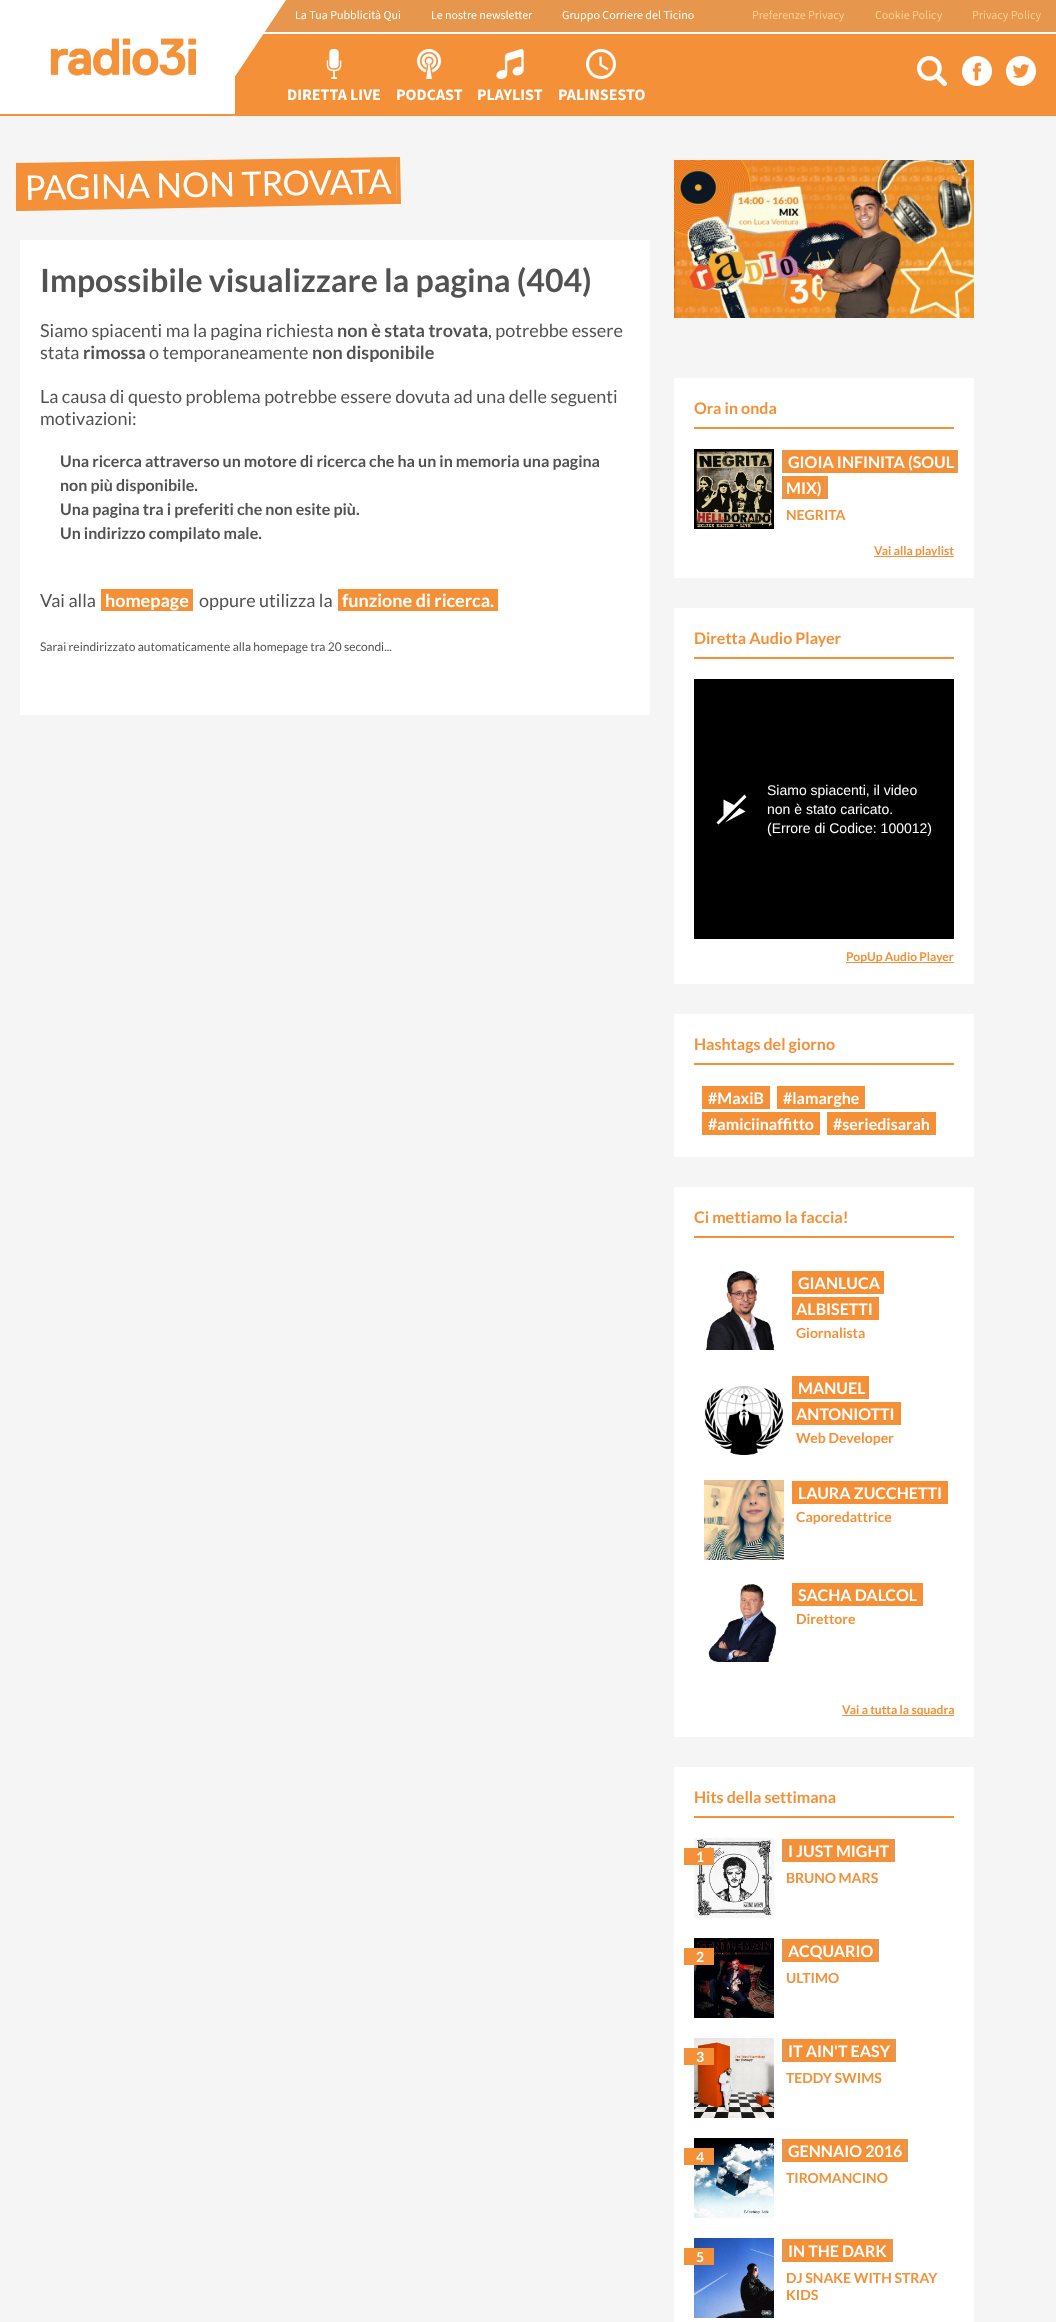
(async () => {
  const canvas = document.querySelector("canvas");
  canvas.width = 1056;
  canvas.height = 2322;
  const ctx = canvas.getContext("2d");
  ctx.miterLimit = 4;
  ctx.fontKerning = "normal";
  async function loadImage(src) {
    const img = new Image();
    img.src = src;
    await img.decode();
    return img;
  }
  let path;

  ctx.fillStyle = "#f5f5f5";
  ctx.fillRect(0, 0, 1056, 2322);
  ctx.fillStyle = "#f39038";
  ctx.fillRect(0, 34, 1056, 82);
  ctx.fillStyle = "#ffffff";
  ctx.fillRect(0, 0, 235, 114);
  ctx.drawImage(await loadImage("img/1.png"), 50, 38, 146, 38);
  ctx.fillStyle = "#e7964d";
  ctx.fillRect(264, 0, 792, 32);
  ctx.fillStyle = "#ffffff";
  ctx.fillRect(263, 32, 793, 2);
  path = new Path2D("M234 0H286L234 78Z");
  ctx.fill(path);
  ctx.drawImage(await loadImage("img/2.png"), 917, 56, 30, 30);
  ctx.drawImage(await loadImage("img/3.png"), 962, 56, 30, 30);
  ctx.drawImage(await loadImage("img/4.png"), 1006, 56, 30, 30);
  ctx.drawImage(await loadImage("img/5.png"), 326, 49, 16, 30);
  ctx.drawImage(await loadImage("img/6.png"), 416, 49, 26, 30);
  ctx.drawImage(await loadImage("img/7.png"), 496, 49, 28, 30);
  ctx.drawImage(await loadImage("img/8.png"), 586, 49, 30, 30);
  ctx.fillStyle = "#f39038";
  path = new Path2D("M16 163L253 159L20 163V211L239 207L16 211Z");
  ctx.fill(path);
  path = new Path2D("M24 211L372 205ZM397 204H401L400 157H396ZM24 163L167 161Z");
  ctx.fill(path, "evenodd");
  path = new Path2D("M20 163L396 157L397 204L20 211Z");
  ctx.fill(path);
  for (const [x, y, w, h, color] of [
    [20, 240, 630, 475, "#ffffff"],
    [101, 589, 4, 22, "#f39038"],
    [105, 589, 88, 22, "#f39038"],
    [338, 589, 4, 22, "#f39038"],
    [342, 589, 156, 22, "#f39038"],
  ]) {
    ctx.fillStyle = color;
    ctx.fillRect(x, y, w, h);
  }
  ctx.drawImage(await loadImage("img/9.png"), 674, 160, 300, 158);
  ctx.fillStyle = "#ffffff";
  ctx.fillRect(674, 378, 300, 200);
  ctx.fillStyle = "#f39038";
  ctx.fillRect(694, 427, 260, 2);
  ctx.drawImage(await loadImage("img/10.png"), 694, 449, 80, 80);
  for (const [x, y, w, h, color] of [
    [782, 450, 4, 23, "#e7964d"],
    [954, 450, 4, 23, "#e7964d"],
    [786, 450, 168, 23, "#f39038"],
    [782, 476, 4, 23, "#e7964d"],
    [824, 476, 4, 23, "#e7964d"],
    [786, 476, 38, 23, "#f39038"],
    [874, 556, 80, 1, "#f39038"],
    [674, 608, 300, 376, "#ffffff"],
    [694, 657, 260, 2, "#f39038"],
    [694, 679, 260, 260, "#000000"],
  ]) {
    ctx.fillStyle = color;
    ctx.fillRect(x, y, w, h);
  }
  ctx.fillStyle = "#ffffff";
  path = new Path2D("M745.5 811.5L725 822.5L739.5 808C745 811 746 811.5 745.5 811.5ZM744.5 794.5L734 805L723.5 799.5V815.5L716.5 822.5L718.5 824.5L746.5 797Z");
  ctx.fill(path);
  for (const [x, y, w, h, color] of [
    [846, 962, 108, 1, "#f39038"],
    [674, 1014, 300, 143, "#ffffff"],
    [694, 1063, 260, 2, "#f39038"],
    [702, 1086, 4, 23, "#f39038"],
    [706, 1086, 64, 23, "#f39038"],
    [777, 1086, 4, 23, "#f39038"],
    [781, 1086, 84, 23, "#f39038"],
    [702, 1112, 4, 23, "#f39038"],
    [706, 1112, 114, 23, "#f39038"],
    [827, 1112, 4, 23, "#f39038"],
    [831, 1112, 105, 23, "#f39038"],
    [674, 1187, 300, 550, "#ffffff"],
    [694, 1236, 260, 2, "#f39038"],
  ]) {
    ctx.fillStyle = color;
    ctx.fillRect(x, y, w, h);
  }
  ctx.drawImage(await loadImage("img/11.png"), 706, 1270, 69, 80);
  for (const [x, y, w, h, color] of [
    [792, 1271, 4, 23, "#f39038"],
    [796, 1271, 88, 23, "#f39038"],
    [792, 1297, 4, 23, "#f39038"],
    [796, 1297, 83, 23, "#f39038"],
  ]) {
    ctx.fillStyle = color;
    ctx.fillRect(x, y, w, h);
  }
  ctx.drawImage(await loadImage("img/12.png"), 704, 1385, 80, 70);
  for (const [x, y, w, h, color] of [
    [792, 1376, 4, 23, "#f39038"],
    [796, 1376, 73, 23, "#f39038"],
    [792, 1402, 4, 23, "#f39038"],
    [796, 1402, 105, 23, "#f39038"],
  ]) {
    ctx.fillStyle = color;
    ctx.fillRect(x, y, w, h);
  }
  ctx.drawImage(await loadImage("img/13.png"), 704, 1480, 80, 80);
  ctx.fillRect(792, 1481, 4, 23);
  ctx.fillRect(796, 1481, 152, 23);
  ctx.drawImage(await loadImage("img/14.png"), 708, 1584, 69, 78);
  for (const [x, y, w, h, color] of [
    [792, 1583, 4, 23, "#f39038"],
    [796, 1583, 127, 23, "#f39038"],
    [842, 1715, 112, 1, "#f39038"],
    [674, 1767, 300, 555, "#ffffff"],
    [694, 1816, 260, 2, "#f39038"],
  ]) {
    ctx.fillStyle = color;
    ctx.fillRect(x, y, w, h);
  }
  ctx.drawImage(await loadImage("img/15.png"), 694, 1838, 80, 80);
  for (const [x, y, w, h, color] of [
    [684, 1848, 30, 17, "#f39038"],
    [782, 1839, 4, 23, "#e7964d"],
    [891, 1839, 4, 23, "#e7964d"],
    [786, 1839, 105, 23, "#f39038"],
  ]) {
    ctx.fillStyle = color;
    ctx.fillRect(x, y, w, h);
  }
  ctx.drawImage(await loadImage("img/16.png"), 694, 1938, 80, 80);
  for (const [x, y, w, h, color] of [
    [684, 1948, 30, 17, "#f39038"],
    [782, 1939, 4, 23, "#e7964d"],
    [875, 1939, 4, 23, "#e7964d"],
    [786, 1939, 89, 23, "#f39038"],
  ]) {
    ctx.fillStyle = color;
    ctx.fillRect(x, y, w, h);
  }
  ctx.drawImage(await loadImage("img/17.png"), 694, 2038, 80, 80);
  for (const [x, y, w, h, color] of [
    [684, 2048, 30, 17, "#f39038"],
    [782, 2039, 4, 23, "#e7964d"],
    [892, 2039, 4, 23, "#e7964d"],
    [786, 2039, 106, 23, "#f39038"],
  ]) {
    ctx.fillStyle = color;
    ctx.fillRect(x, y, w, h);
  }
  ctx.drawImage(await loadImage("img/18.png"), 694, 2138, 80, 80);
  for (const [x, y, w, h, color] of [
    [684, 2148, 30, 17, "#f39038"],
    [782, 2139, 4, 23, "#e7964d"],
    [904, 2139, 4, 23, "#e7964d"],
    [786, 2139, 118, 23, "#f39038"],
  ]) {
    ctx.fillStyle = color;
    ctx.fillRect(x, y, w, h);
  }
  ctx.drawImage(await loadImage("img/19.png"), 694, 2238, 80, 80);
  for (const [x, y, w, h, color] of [
    [684, 2248, 30, 17, "#f39038"],
    [782, 2239, 4, 23, "#e7964d"],
    [889, 2239, 4, 23, "#e7964d"],
    [786, 2239, 103, 23, "#f39038"],
  ]) {
    ctx.fillStyle = color;
    ctx.fillRect(x, y, w, h);
  }
  ctx.font = "12px 'Source Sans 3'";
  ctx.fillStyle = "#ffffff";
  for (const [text, x, y] of [
    ["La Tua Pubblicità Qui", 295, 19],
    ["Le nostre newsletter", 431, 19],
    ["Gruppo Corriere del Ticino", 562, 19],
  ]) {
    ctx.fillText(text, x, y);
  }
  ctx.fillStyle = "#ffd08c";
  for (const [text, x, y] of [
    ["Preferenze Privacy", 752, 19],
    ["Cookie Policy", 875, 19],
    ["Privacy Policy", 972, 19],
  ]) {
    ctx.fillText(text, x, y);
  }
  ctx.font = "bold 16px 'Source Sans 3'";
  ctx.fillStyle = "#ffffff";
  for (const [text, x, y] of [
    ["DIRETTA LIVE", 287, 100],
    ["PODCAST", 396, 100],
    ["PLAYLIST", 477, 100],
    ["PALINSESTO", 558, 100],
  ]) {
    ctx.fillText(text, x, y);
  }
  ctx.font = "34px Lato";
  ctx.save();
  ctx.translate(25, 200);
  ctx.rotate(-1 * Math.PI / 180);
  ctx.fillText("PAGINA NON TROVATA", 0, 0);
  ctx.restore();
  ctx.font = "bold 32px Lato";
  ctx.fillStyle = "#525252";
  ctx.fillText("Impossibile visualizzare la pagina (404)", 40, 292);
  ctx.font = "18px Lato";
  ctx.fillText("Siamo spiacenti ma la pagina richiesta", 40, 337);
  ctx.font = "bold 18px Lato";
  ctx.fillText("non è stata trovata", 337, 337);
  ctx.font = "18px Lato";
  ctx.fillText(", potrebbe essere", 488, 337);
  ctx.fillText("stata", 40, 359);
  ctx.font = "bold 18px Lato";
  ctx.fillText("rimossa", 83, 359);
  ctx.font = "18px Lato";
  ctx.fillText("o temporaneamente", 149, 359);
  ctx.font = "bold 18px Lato";
  ctx.fillText("non disponibile", 312, 359);
  ctx.font = "18px Lato";
  ctx.fillText("La causa di questo problema potrebbe essere dovuta ad una delle seguenti", 40, 403);
  ctx.fillText("motivazioni:", 40, 425);
  ctx.font = "bold 16px Lato";
  for (const [text, x, y] of [
    ["Una ricerca attraverso un motore di ricerca che ha un in memoria una pagina", 60, 467],
    ["non più disponibile.", 60, 491],
    ["Una pagina tra i preferiti che non esite più.", 60, 515],
    ["Un indirizzo compilato male.", 60, 539],
  ]) {
    ctx.fillText(text, x, y);
  }
  ctx.font = "18px Lato";
  ctx.fillText("Vai alla", 40, 607);
  ctx.font = "bold 18px Lato";
  ctx.fillStyle = "#ffffff";
  ctx.fillText("homepage", 105, 607);
  ctx.font = "18px Lato";
  ctx.fillStyle = "#525252";
  ctx.fillText("oppure utilizza la", 199, 607);
  ctx.font = "bold 18px Lato";
  ctx.fillStyle = "#ffffff";
  ctx.fillText("funzione di ricerca.", 342, 607);
  ctx.font = "12px Lato";
  ctx.fillStyle = "#525252";
  ctx.fillText("Sarai reindirizzato automaticamente alla homepage tra 20 secondi...", 40, 651);
  ctx.font = "bold 16px Lato";
  ctx.fillStyle = "#f39038";
  ctx.fillText("Ora in onda", 694, 414);
  ctx.fillStyle = "#ffffff";
  ctx.fillText("GIOIA INFINITA (SOUL", 788, 468);
  ctx.fillText("MIX)", 786, 494);
  ctx.font = "bold 14px Lato";
  ctx.fillStyle = "#f39038";
  ctx.fillText("NEGRITA", 786, 520);
  ctx.font = "bold 12px Lato";
  ctx.fillText("Vai alla playlist", 874, 555);
  ctx.font = "bold 16px Lato";
  ctx.fillText("Diretta Audio Player", 694, 644);
  ctx.font = "14px Liberation Sans";
  ctx.fillStyle = "#ffffff";
  for (const [text, x, y] of [
    ["Siamo spiacenti, il video", 767, 795],
    ["non è stato caricato.", 767, 814],
    ["(Errore di Codice: 100012)", 767, 833],
  ]) {
    ctx.fillText(text, x, y);
  }
  ctx.font = "bold 12px Lato";
  ctx.fillStyle = "#f39038";
  ctx.fillText("PopUp Audio Player", 846, 961);
  ctx.font = "bold 16px Lato";
  ctx.fillText("Hashtags del giorno", 694, 1050);
  ctx.fillStyle = "#ffffff";
  for (const [text, x, y] of [
    ["#MaxiB", 708, 1104],
    ["#lamarghe", 783, 1104],
    ["#amiciinaffitto", 708, 1130],
    ["#seriedisarah", 833, 1130],
  ]) {
    ctx.fillText(text, x, y);
  }
  ctx.fillStyle = "#f39038";
  ctx.fillText("Ci mettiamo la faccia!", 694, 1223);
  ctx.fillStyle = "#ffffff";
  ctx.fillText("GIANLUCA", 798, 1289);
  ctx.fillText("ALBISETTI", 796, 1315);
  ctx.font = "bold 14px Lato";
  ctx.fillStyle = "#f39038";
  ctx.fillText("Giornalista", 796, 1338);
  ctx.font = "bold 16px Lato";
  ctx.fillStyle = "#ffffff";
  ctx.fillText("MANUEL", 798, 1394);
  ctx.fillText("ANTONIOTTI", 796, 1420);
  ctx.font = "bold 14px Lato";
  ctx.fillStyle = "#f39038";
  ctx.fillText("Web Developer", 796, 1443);
  ctx.font = "bold 16px Lato";
  ctx.fillStyle = "#ffffff";
  ctx.fillText("LAURA ZUCCHETTI", 798, 1499);
  ctx.font = "bold 14px Lato";
  ctx.fillStyle = "#f39038";
  ctx.fillText("Caporedattrice", 796, 1522);
  ctx.font = "bold 16px Lato";
  ctx.fillStyle = "#ffffff";
  ctx.fillText("SACHA DALCOL", 798, 1601);
  ctx.font = "bold 14px Lato";
  ctx.fillStyle = "#f39038";
  ctx.fillText("Direttore", 796, 1624);
  ctx.font = "bold 12px Lato";
  ctx.fillText("Vai a tutta la squadra", 842, 1714);
  ctx.font = "bold 16px Lato";
  ctx.fillText("Hits della settimana", 694, 1803);
  ctx.font = "bold 14px Lato";
  ctx.fillStyle = "#ffffff";
  ctx.fillText("1", 696, 1862);
  ctx.font = "bold 16px Lato";
  ctx.fillText("I JUST MIGHT", 788, 1857);
  ctx.font = "bold 14px Lato";
  ctx.fillStyle = "#f39038";
  ctx.fillText("BRUNO MARS", 786, 1883);
  ctx.fillStyle = "#ffffff";
  ctx.fillText("2", 696, 1962);
  ctx.font = "bold 16px Lato";
  ctx.fillText("ACQUARIO", 788, 1957);
  ctx.font = "bold 14px Lato";
  ctx.fillStyle = "#f39038";
  ctx.fillText("ULTIMO", 786, 1983);
  ctx.fillStyle = "#ffffff";
  ctx.fillText("3", 696, 2062);
  ctx.font = "bold 16px Lato";
  ctx.fillText("IT AIN'T EASY", 788, 2057);
  ctx.font = "bold 14px Lato";
  ctx.fillStyle = "#f39038";
  ctx.fillText("TEDDY SWIMS", 786, 2083);
  ctx.fillStyle = "#ffffff";
  ctx.fillText("4", 696, 2162);
  ctx.font = "bold 16px Lato";
  ctx.fillText("GENNAIO 2016", 788, 2157);
  ctx.font = "bold 14px Lato";
  ctx.fillStyle = "#f39038";
  ctx.fillText("TIROMANCINO", 786, 2183);
  ctx.fillStyle = "#ffffff";
  ctx.fillText("5", 696, 2262);
  ctx.font = "bold 16px Lato";
  ctx.fillText("IN THE DARK", 788, 2257);
  ctx.font = "bold 14px Lato";
  ctx.fillStyle = "#f39038";
  ctx.fillText("DJ SNAKE WITH STRAY", 786, 2283);
  ctx.fillText("KIDS", 786, 2300);
})();
